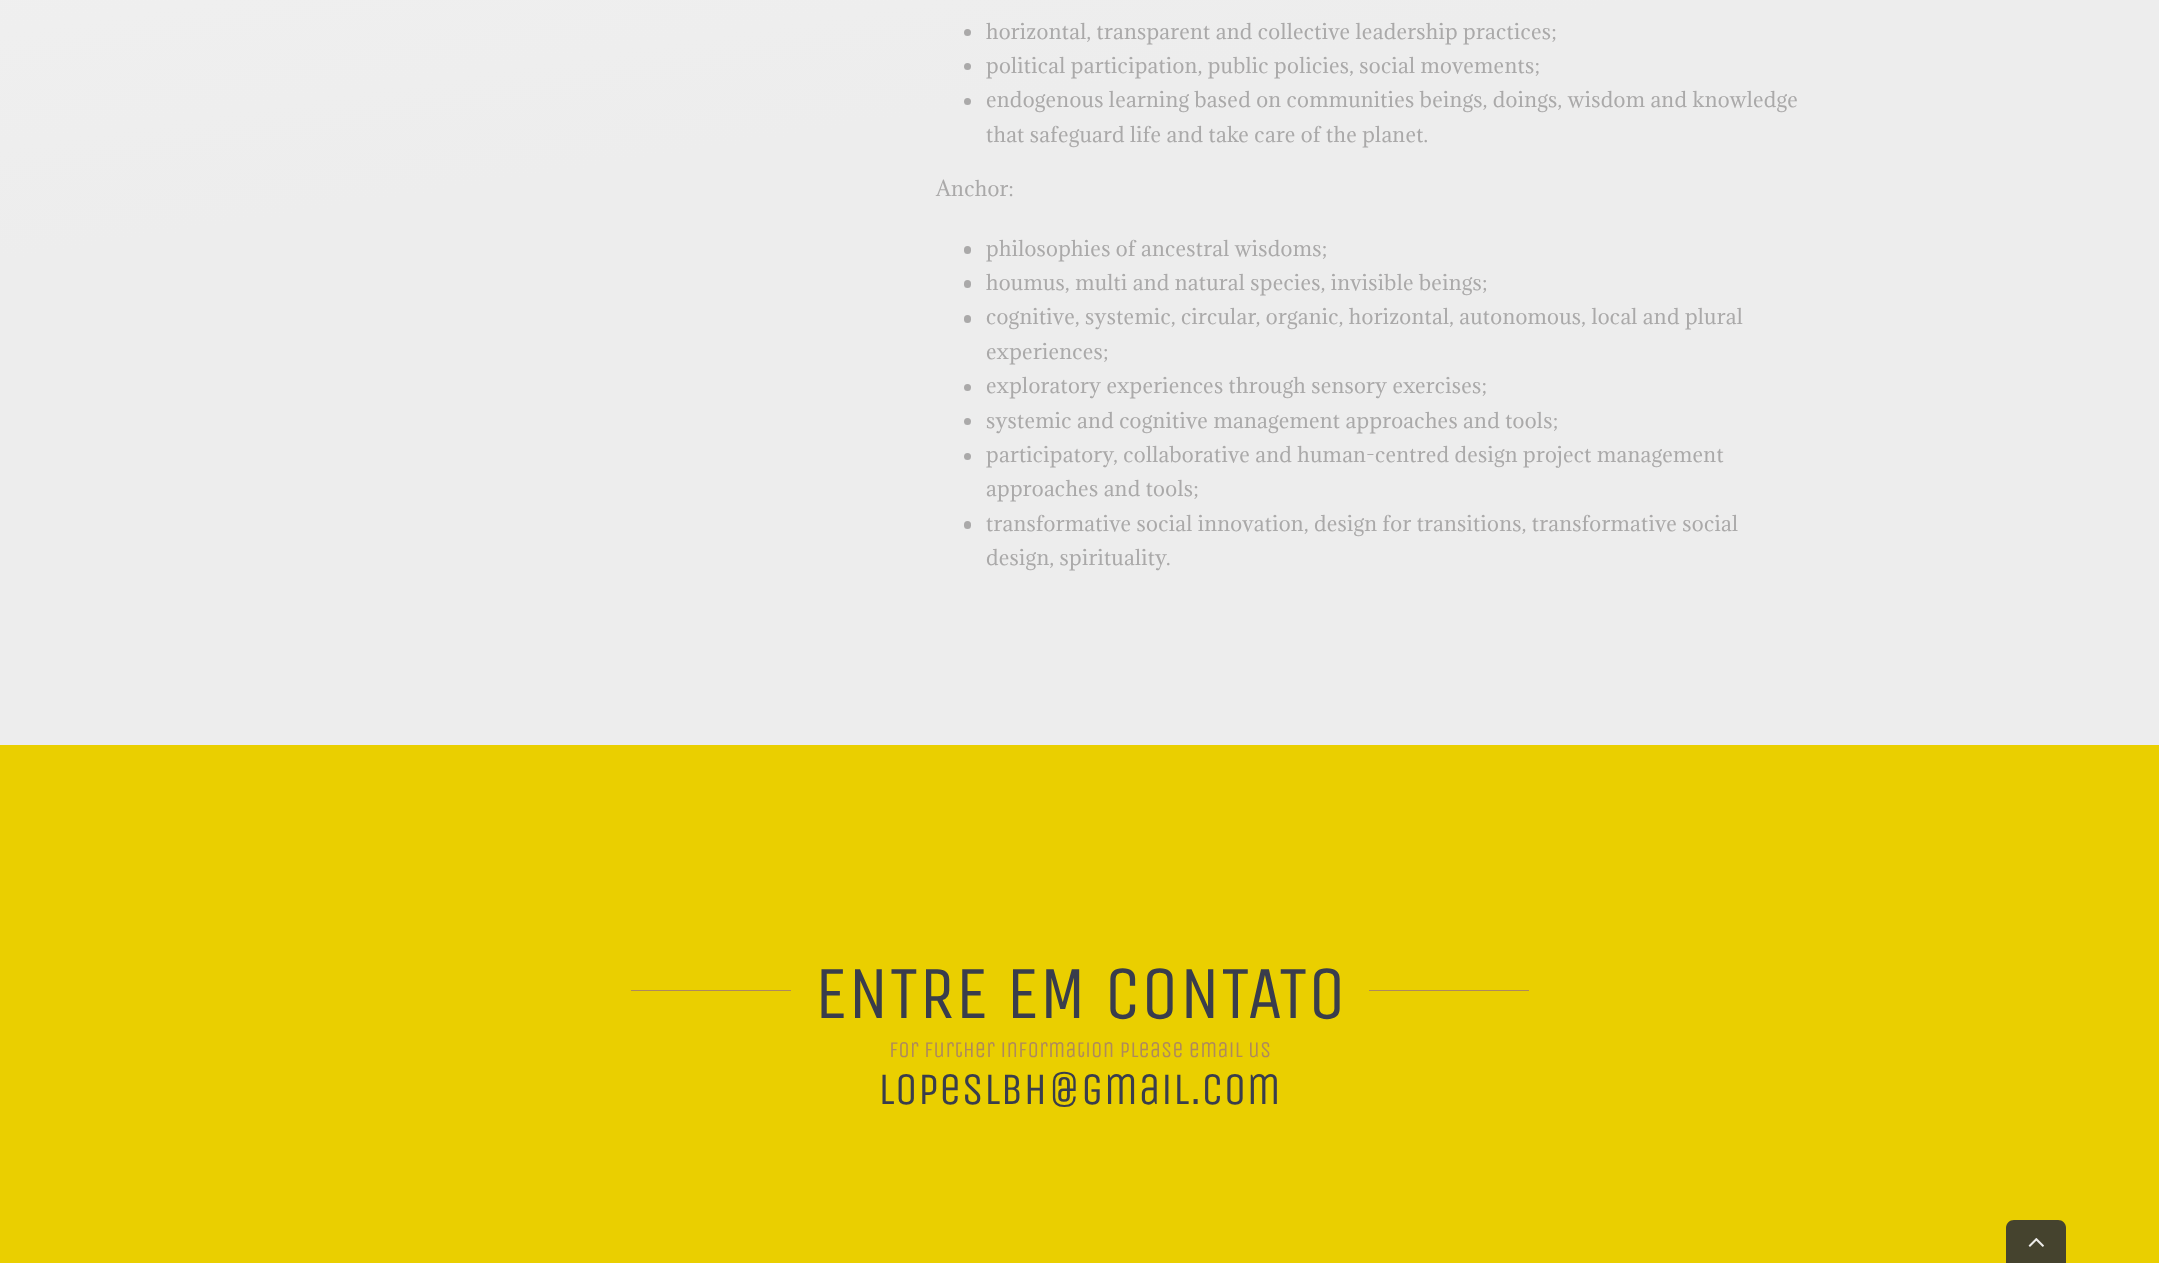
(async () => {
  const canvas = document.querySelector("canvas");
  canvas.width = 2159;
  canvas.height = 1263;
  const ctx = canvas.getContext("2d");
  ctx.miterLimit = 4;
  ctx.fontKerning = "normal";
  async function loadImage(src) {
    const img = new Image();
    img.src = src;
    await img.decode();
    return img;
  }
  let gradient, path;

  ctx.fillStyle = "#ffffff";
  ctx.fillRect(0, 0, 2159, 1263);
  gradient = ctx.createLinearGradient(761, -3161, 1399, 866);
  gradient.addColorStop(0.3, "#ffffff");
  gradient.addColorStop(0.8, "#ededed");
  ctx.fillStyle = gradient;
  ctx.fillRect(0, 0, 2159, 745);
  ctx.fillStyle = "#aaa9a9";
  ctx.beginPath();
  ctx.arc(967.5, 32.5, 3.5, 0, Math.PI * 2);
  ctx.fill();
  ctx.beginPath();
  ctx.arc(967.5, 66.5, 3.5, 0, Math.PI * 2);
  ctx.fill();
  ctx.beginPath();
  ctx.arc(967.5, 101.5, 3.5, 0, Math.PI * 2);
  ctx.fill();
  ctx.beginPath();
  ctx.roundRect(964, 246, 7, 8, 3.5);
  ctx.fill();
  ctx.beginPath();
  ctx.roundRect(964, 280, 7, 8, 3.5);
  ctx.fill();
  ctx.beginPath();
  ctx.roundRect(964, 315, 7, 8, 3.5);
  ctx.fill();
  ctx.beginPath();
  ctx.arc(967.5, 387.5, 3.5, 0, Math.PI * 2);
  ctx.fill();
  ctx.beginPath();
  ctx.arc(967.5, 421.5, 3.5, 0, Math.PI * 2);
  ctx.fill();
  ctx.beginPath();
  ctx.arc(967.5, 456.5, 3.5, 0, Math.PI * 2);
  ctx.fill();
  ctx.beginPath();
  ctx.roundRect(964, 521, 7, 8, 3.5);
  ctx.fill();
  for (const [x, y, w, h, color] of [
    [0, 745, 2159, 518, "#eacf00"],
    [631, 990, 160, 1, "#ae895d"],
    [1369, 990, 160, 1, "#ae895d"],
  ]) {
    ctx.fillStyle = color;
    ctx.fillRect(x, y, w, h);
  }
  ctx.fillStyle = "#45432e";
  path = new Path2D("M2014 1220H2058C2062.5 1220 2066 1223.5 2066 1228V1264H2006V1228C2006 1223.5 2009.5 1220 2014 1220Z");
  ctx.fill(path);
  ctx.drawImage(await loadImage("img/1.png"), 2028, 1238, 16, 9);
  ctx.letterSpacing = "0.3px";
  ctx.font = "20px Adamina";
  ctx.fillStyle = "#aaa9a9";
  for (const [text, x, y] of [
    ["horizontal, transparent and collective leadership practices;", 986, 39],
    ["political participation, public policies, social movements;", 986, 73],
    ["endogenous learning based on communities beings, doings, wisdom and knowledge", 986, 107],
    ["that safeguard life and take care of the planet.", 986, 142],
    ["Anchor:", 936, 196],
    ["philosophies of ancestral wisdoms;", 986, 256],
    ["houmus, multi and natural species, invisible beings;", 986, 290],
    ["cognitive, systemic, circular, organic, horizontal, autonomous, local and plural", 986, 324],
    ["experiences;", 986, 359],
    ["exploratory experiences through sensory exercises;", 986, 393],
    ["systemic and cognitive management approaches and tools;", 986, 428],
    ["participatory, collaborative and human-centred design project management", 986, 462],
    ["approaches and tools;", 986, 496],
    ["transformative social innovation, design for transitions, transformative social", 986, 531],
    ["design, spirituality.", 986, 565],
  ]) {
    ctx.fillText(text, x, y);
  }
  ctx.letterSpacing = "0px";
  ctx.font = "75px Unica One";
  ctx.fillStyle = "#393d4c";
  ctx.fillText("ENTRE EM CONTATO", 814, 1018);
  ctx.font = "22.5px Unica One";
  ctx.fillStyle = "#ae895d";
  ctx.fillText("for further information please email us", 889, 1057);
  ctx.font = "45px Unica One";
  ctx.fillStyle = "#393d4c";
  ctx.fillText("lopeslbh@gmail.com", 878, 1104);
})();
